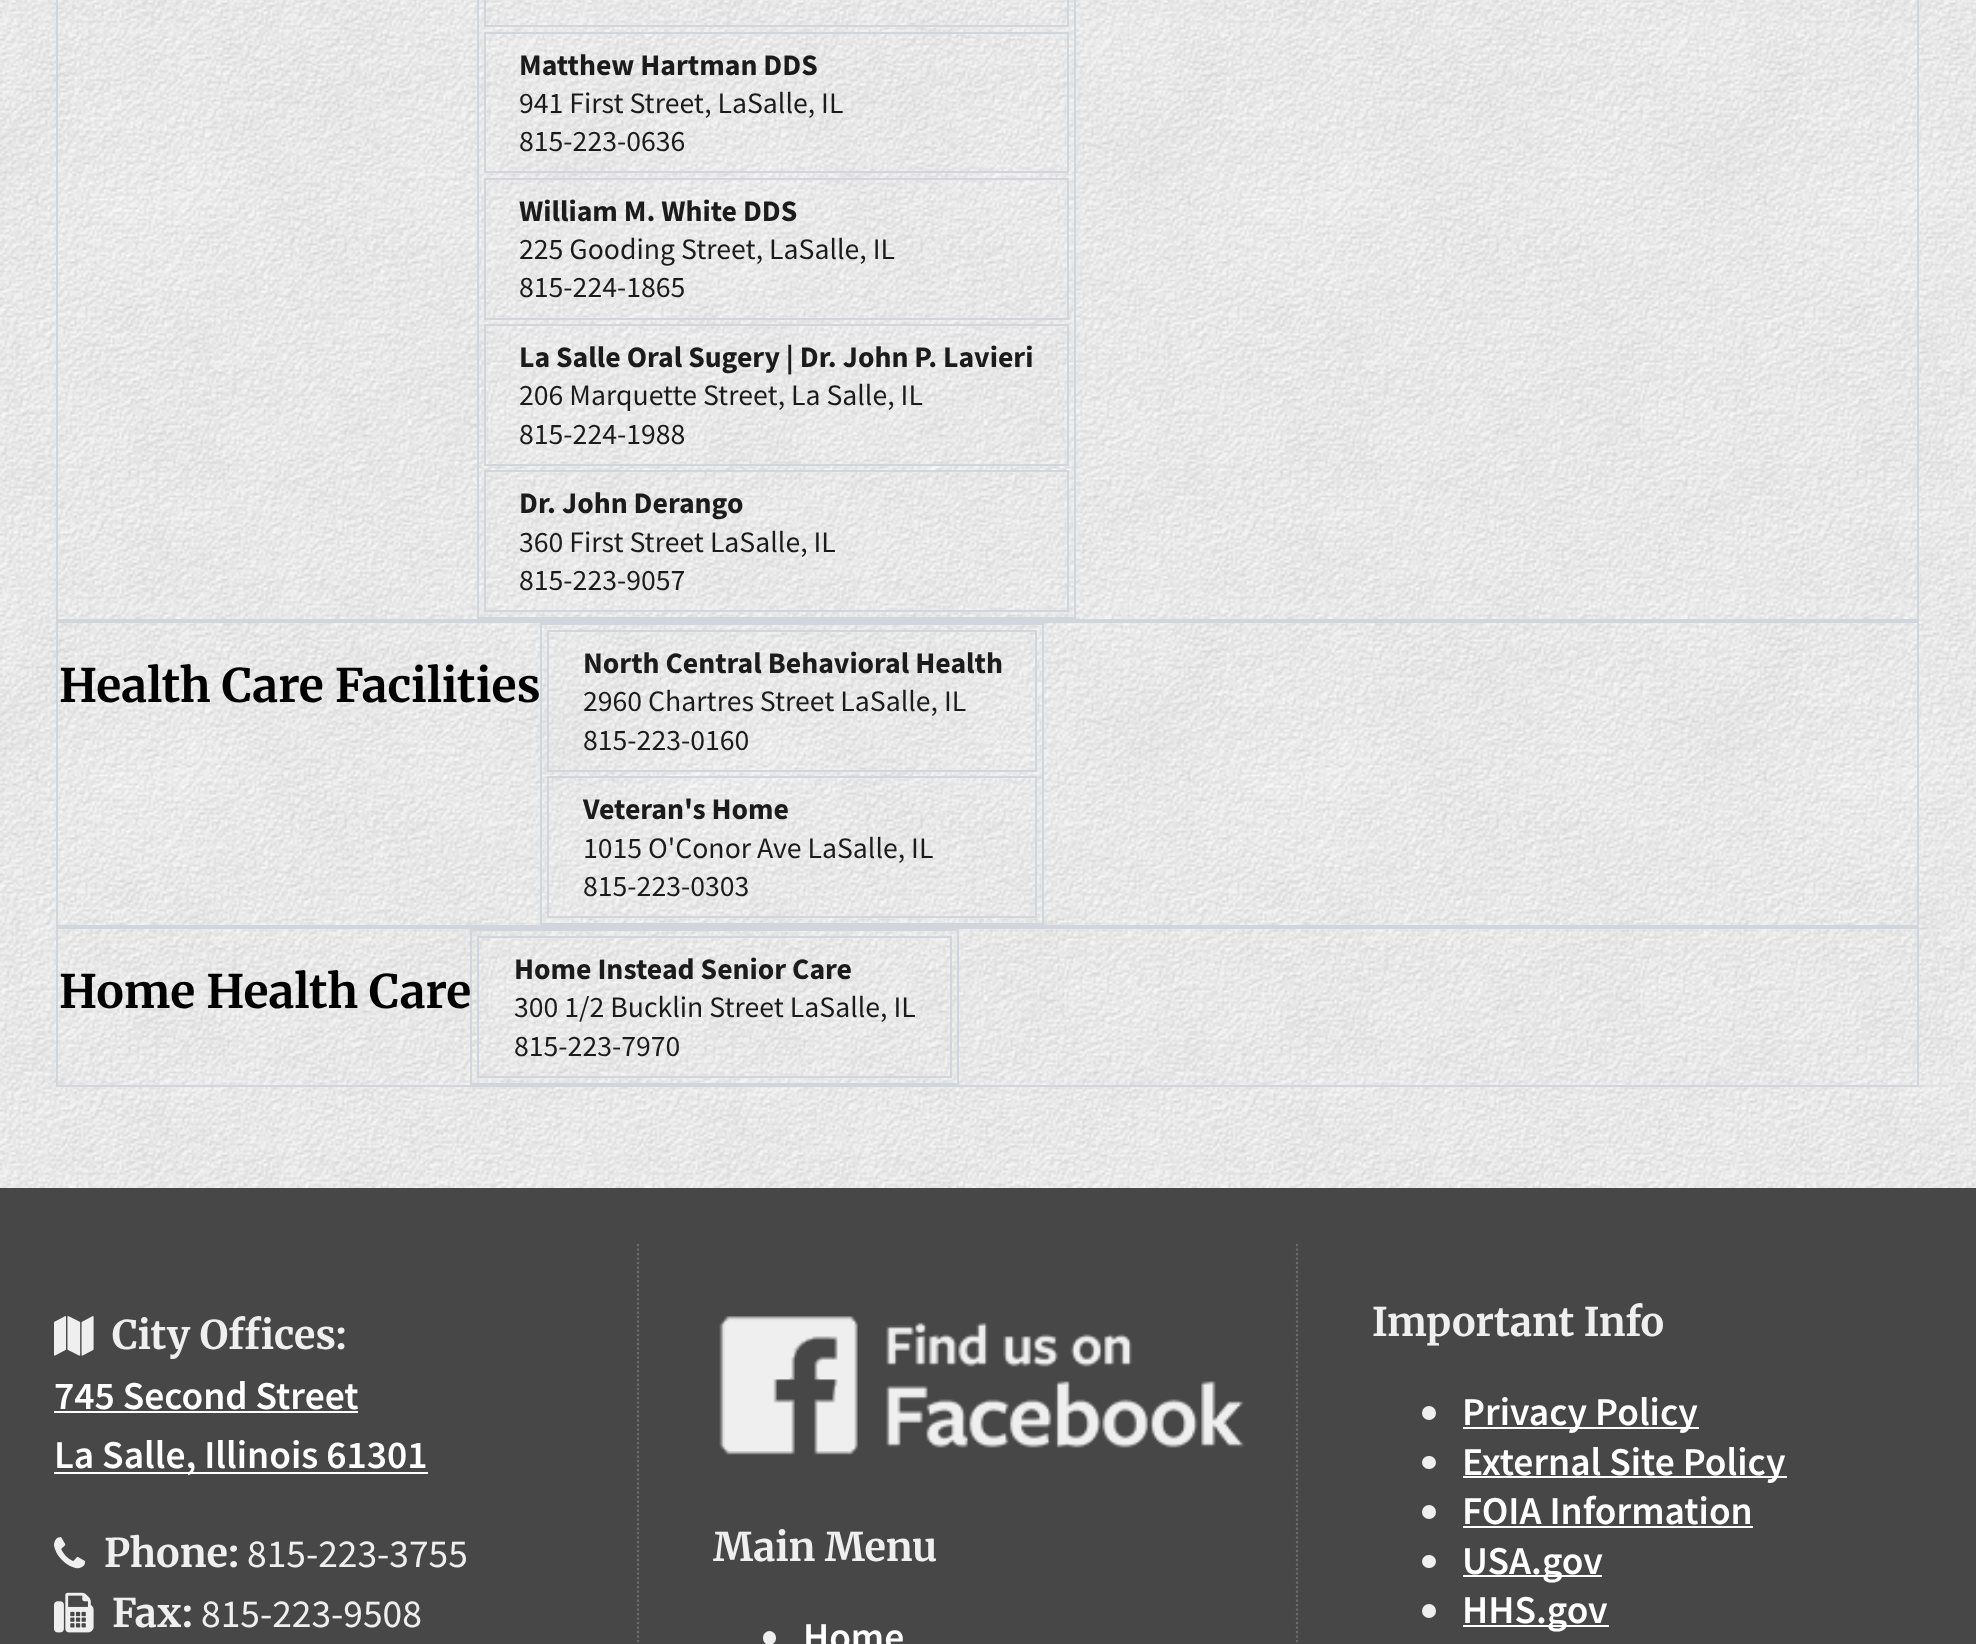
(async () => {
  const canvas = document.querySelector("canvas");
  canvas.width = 1976;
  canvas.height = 1644;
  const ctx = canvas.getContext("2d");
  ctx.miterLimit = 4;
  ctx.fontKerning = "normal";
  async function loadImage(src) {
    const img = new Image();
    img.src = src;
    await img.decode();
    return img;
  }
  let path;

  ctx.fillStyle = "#ffffff";
  ctx.fillRect(0, 0, 1976, 1644);
  ctx.drawImage(await loadImage("img/1.png"), 0, 0, 1976, 1188);
  ctx.strokeStyle = "#d0d6dc";
  ctx.lineWidth = 2;
  ctx.strokeRect(57, -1, 1861, 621);
  ctx.strokeRect(478, -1, 597, 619);
  ctx.strokeRect(485, -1, 583, 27);
  ctx.strokeRect(485, 33, 583, 139);
  ctx.strokeRect(485, 179, 583, 140);
  ctx.strokeRect(485, 325, 583, 140);
  ctx.strokeRect(485, 471, 583, 140);
  ctx.strokeRect(57, 622, 1861, 304);
  ctx.strokeRect(541, 624, 502, 300);
  ctx.strokeRect(548, 631, 488, 140);
  ctx.strokeRect(548, 777, 488, 140);
  ctx.strokeRect(57, 928, 1861, 158);
  ctx.strokeRect(471, 930, 487, 154);
  ctx.strokeRect(478, 937, 473, 140);
  ctx.fillStyle = "#474747";
  ctx.fillRect(0, 1188, 1976, 456);
  path = new Path2D("M638 1244V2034");
  ctx.strokeStyle = "#6c6c6c";
  ctx.lineWidth = 2.2;
  ctx.setLineDash([2.25, 2.25]);
  ctx.stroke(path);
  ctx.drawImage(await loadImage("img/2.png"), 54, 1316, 40, 40);
  ctx.fillStyle = "#ffffff";
  ctx.fillRect(54, 1411, 304, 2);
  ctx.fillRect(54, 1472, 374, 2);
  ctx.drawImage(await loadImage("img/3.png"), 54, 1537, 32, 32);
  ctx.drawImage(await loadImage("img/4.png"), 54, 1592, 40, 41);
  path = new Path2D("M1297 1244V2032");
  ctx.stroke(path);
  ctx.drawImage(await loadImage("img/5.png"), 719, 1316, 526, 139);
  ctx.fillStyle = "#efefef";
  ctx.beginPath();
  ctx.roundRect(763, 1631, 13, 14, 6.5);
  ctx.fill();
  ctx.beginPath();
  ctx.arc(1429, 1413, 7, 0, Math.PI * 2);
  ctx.fill();
  ctx.fillStyle = "#ffffff";
  ctx.fillRect(1463, 1427, 236, 2);
  ctx.fillStyle = "#efefef";
  ctx.beginPath();
  ctx.roundRect(1422, 1456, 14, 13, 6.5);
  ctx.fill();
  ctx.fillStyle = "#ffffff";
  ctx.fillRect(1463, 1476, 324, 2);
  ctx.fillStyle = "#efefef";
  ctx.beginPath();
  ctx.arc(1429, 1512, 7, 0, Math.PI * 2);
  ctx.fill();
  ctx.fillStyle = "#ffffff";
  ctx.fillRect(1463, 1526, 290, 2);
  ctx.fillStyle = "#efefef";
  ctx.beginPath();
  ctx.roundRect(1422, 1555, 14, 13, 6.5);
  ctx.fill();
  ctx.fillStyle = "#ffffff";
  ctx.fillRect(1463, 1575, 139, 2);
  ctx.fillStyle = "#efefef";
  ctx.beginPath();
  ctx.arc(1429, 1611, 7, 0, Math.PI * 2);
  ctx.fill();
  ctx.fillStyle = "#ffffff";
  ctx.fillRect(1463, 1625, 146, 2);
  ctx.font = "bold 29.75px Source Sans Pro";
  ctx.fillStyle = "#1b1b1b";
  ctx.fillText("Matthew Hartman DDS", 519, 75);
  ctx.font = "29.75px Source Sans Pro";
  ctx.fillText("941 First Street, LaSalle, IL", 519, 113);
  ctx.fillText("815-223-0636", 519, 151);
  ctx.font = "bold 29.75px Source Sans Pro";
  ctx.fillText("William M. White DDS", 519, 221);
  ctx.font = "29.75px Source Sans Pro";
  ctx.fillText("225 Gooding Street, LaSalle, IL", 519, 259);
  ctx.fillText("815-224-1865", 519, 297);
  ctx.font = "bold 29.75px Source Sans Pro";
  ctx.fillText("La Salle Oral Sugery | Dr. John P. Lavieri", 519, 367);
  ctx.font = "29.75px Source Sans Pro";
  ctx.fillText("206 Marquette Street, La Salle, IL", 519, 405);
  ctx.fillText("815-224-1988", 519, 444);
  ctx.font = "bold 29.75px Source Sans Pro";
  ctx.fillText("Dr. John Derango", 519, 513);
  ctx.font = "29.75px Source Sans Pro";
  ctx.fillText("360 First Street LaSalle, IL", 519, 552);
  ctx.fillText("815-223-9057", 519, 590);
  ctx.font = "bold 46.25px Merriweather";
  ctx.fillStyle = "#000000";
  ctx.fillText("Health Care Facilities", 59, 702);
  ctx.font = "bold 29.75px Source Sans Pro";
  ctx.fillStyle = "#1b1b1b";
  ctx.fillText("North Central Behavioral Health", 583, 673);
  ctx.font = "29.75px Source Sans Pro";
  ctx.fillText("2960 Chartres Street LaSalle, IL", 583, 711);
  ctx.fillText("815-223-0160", 583, 750);
  ctx.font = "bold 29.75px Source Sans Pro";
  ctx.fillText("Veteran's Home", 583, 819);
  ctx.font = "29.75px Source Sans Pro";
  ctx.fillText("1015 O'Conor Ave LaSalle, IL", 583, 858);
  ctx.fillText("815-223-0303", 583, 896);
  ctx.font = "bold 46.25px Merriweather";
  ctx.fillStyle = "#000000";
  ctx.fillText("Home Health Care", 59, 1008);
  ctx.font = "bold 29.75px Source Sans Pro";
  ctx.fillStyle = "#1b1b1b";
  ctx.fillText("Home Instead Senior Care", 514, 979);
  ctx.font = "29.75px Source Sans Pro";
  ctx.fillText("300 1/2 Bucklin Street LaSalle, IL", 514, 1017);
  ctx.fillText("815-223-7970", 514, 1056);
  ctx.font = "bold 39.5px Merriweather";
  ctx.fillStyle = "#efefef";
  ctx.fillText("City Offices:", 112, 1349);
  ctx.font = "600 39.5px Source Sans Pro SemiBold";
  ctx.fillStyle = "#ffffff";
  ctx.fillText("745 Second Street", 54, 1409);
  ctx.fillText("La Salle, Illinois 61301", 54, 1468);
  ctx.font = "bold 39.5px Merriweather";
  ctx.fillStyle = "#efefef";
  ctx.fillText("Phone:", 104, 1567);
  ctx.font = "39.5px Source Sans Pro";
  ctx.fillText("815-223-3755", 247, 1567);
  ctx.font = "bold 39.5px Merriweather";
  ctx.fillText("Fax:", 112, 1627);
  ctx.font = "39.5px Source Sans Pro";
  ctx.fillText("815-223-9508", 201, 1627);
  ctx.font = "bold 39.5px Merriweather";
  ctx.fillText("Main Menu", 713, 1561);
  ctx.font = "600 39.5px Source Sans Pro SemiBold";
  ctx.fillStyle = "#ffffff";
  ctx.fillText("Home", 803, 1650);
  ctx.font = "bold 39.5px Merriweather";
  ctx.fillStyle = "#efefef";
  ctx.fillText("Important Info", 1372, 1336);
  ctx.font = "600 39.5px Source Sans Pro SemiBold";
  ctx.fillStyle = "#ffffff";
  for (const [text, x, y] of [
    ["Privacy Policy", 1462, 1425],
    ["External Site Policy", 1462, 1475],
    ["FOIA Information", 1462, 1524],
    ["USA.gov", 1462, 1574],
    ["HHS.gov", 1462, 1623],
  ]) {
    ctx.fillText(text, x, y);
  }
})();
